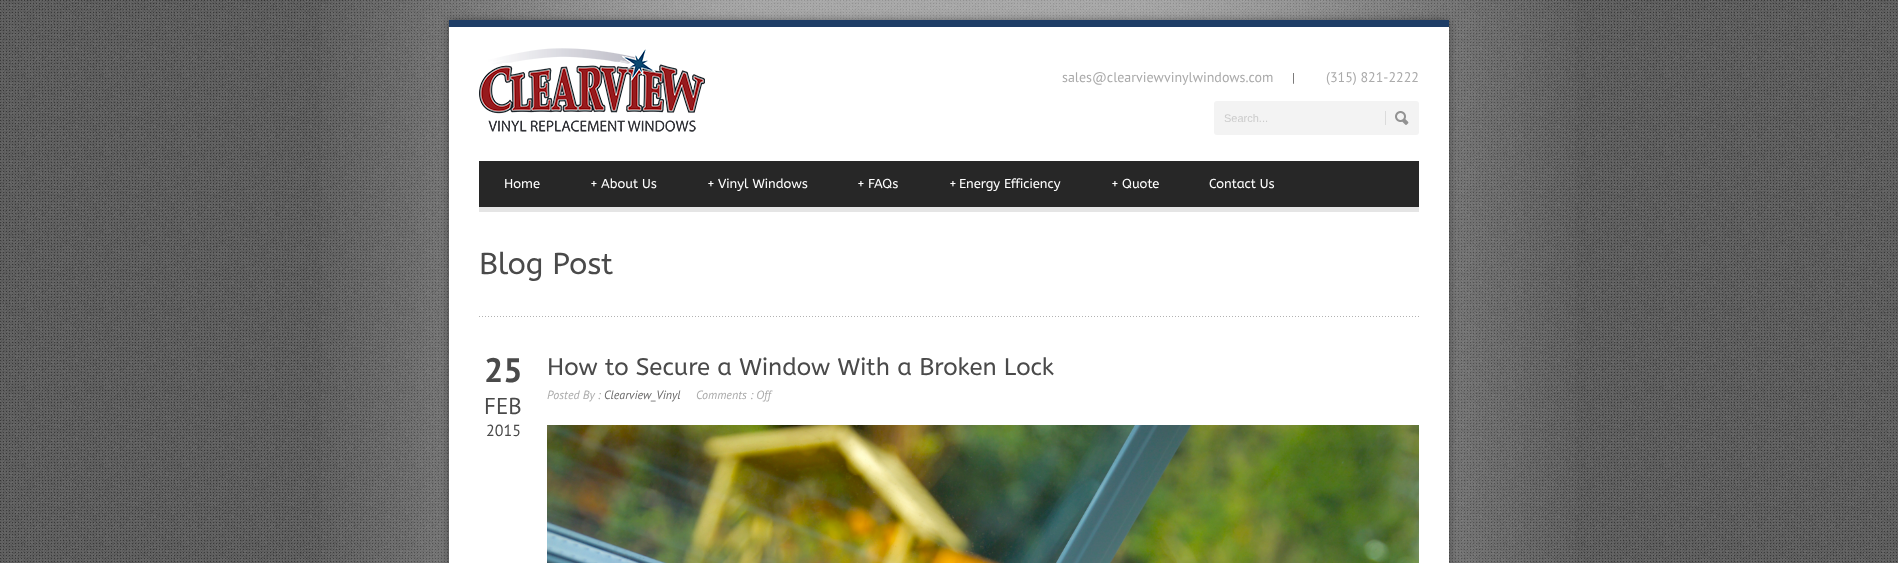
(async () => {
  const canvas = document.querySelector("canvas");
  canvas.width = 1898;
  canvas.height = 563;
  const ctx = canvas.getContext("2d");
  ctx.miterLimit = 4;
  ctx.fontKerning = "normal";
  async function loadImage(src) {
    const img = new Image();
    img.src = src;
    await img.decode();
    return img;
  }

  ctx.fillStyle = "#ffffff";
  ctx.fillRect(0, 0, 1898, 563);
  ctx.drawImage(await loadImage("img/1.png"), 0, 0, 1898, 563);
  ctx.drawImage(await loadImage("img/2.png"), 321, 0, 1255, 563);
  ctx.fillStyle = "rgba(0, 0, 0, 0.4)";
  ctx.filter = "blur(4px)";
  ctx.beginPath();
  ctx.rect(449, 20, 1000, 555);
  ctx.fill();
  ctx.filter = "none";
  ctx.fillStyle = "#1e3d66";
  ctx.fillRect(449, 20, 1000, 7);
  ctx.fillStyle = "#ffffff";
  ctx.fillRect(449, 27, 1000, 536);
  ctx.drawImage(await loadImage("img/3.png"), 479, 48, 226, 84);
  ctx.fillStyle = "#f3f3f3";
  ctx.beginPath();
  ctx.roundRect(1214, 101, 205, 34, 3);
  ctx.fill();
  ctx.drawImage(await loadImage("img/4.png"), 1395, 111, 14, 14);
  ctx.fillStyle = "#dbdbdb";
  ctx.fillRect(1385, 111, 1, 14);
  ctx.fillStyle = "#272727";
  ctx.fillRect(479, 161, 940, 46);
  ctx.drawImage(await loadImage("img/5.png"), 479, 316, 940, 1);
  ctx.fillStyle = "#e5e5e5";
  ctx.fillRect(479, 207, 940, 5);
  ctx.drawImage(await loadImage("img/6.png"), 547, 425, 872, 138);
  ctx.font = "14px PT Sans";
  ctx.fillStyle = "#aaaaaa";
  ctx.fillText("sales@clearviewvinylwindows.com", 1062, 82);
  ctx.font = "13px PT Sans";
  ctx.fillStyle = "#6b6a6a";
  ctx.fillText("|", 1292, 82);
  ctx.font = "14px PT Sans";
  ctx.fillStyle = "#aaaaaa";
  ctx.fillText("(315) 821-2222", 1326, 82);
  ctx.font = "11px Liberation Sans";
  ctx.fillStyle = "#cccccc";
  ctx.fillText("Search...", 1224, 122);
  ctx.font = "13px ABeeZee";
  ctx.fillStyle = "#ffffff";
  for (const [text, x, y] of [
    ["Home", 504, 188],
    ["+", 590, 188],
    ["About Us", 601, 188],
    ["+", 707, 188],
    ["Vinyl Windows", 718, 188],
    ["+", 857, 188],
    ["FAQs", 868, 188],
    ["+", 949, 188],
    ["Energy Efficiency", 959, 188],
    ["+", 1111, 188],
    ["Quote", 1122, 188],
    ["Contact Us", 1209, 188],
  ]) {
    ctx.fillText(text, x, y);
  }
  ctx.font = "30px ABeeZee";
  ctx.fillStyle = "#4a4a4a";
  ctx.fillText("Blog Post", 479, 274);
  ctx.font = "bold 34px PT Sans";
  ctx.fillText("25", 484, 382);
  ctx.font = "23px PT Sans";
  ctx.fillText("FEB", 484, 414);
  ctx.font = "16px PT Sans";
  ctx.fillText("2015", 486, 436);
  ctx.font = "24px ABeeZee";
  ctx.fillText("How to Secure a Window With a Broken Lock", 547, 375);
  ctx.font = "italic 12px PT Sans";
  ctx.fillStyle = "#aaaaaa";
  ctx.fillText("Posted By :", 547, 399);
  ctx.fillStyle = "#6b6a6a";
  ctx.fillText("Clearview_Vinyl", 604, 399);
  ctx.fillStyle = "#aaaaaa";
  ctx.fillText("Comments : Off", 696, 399);
})();
